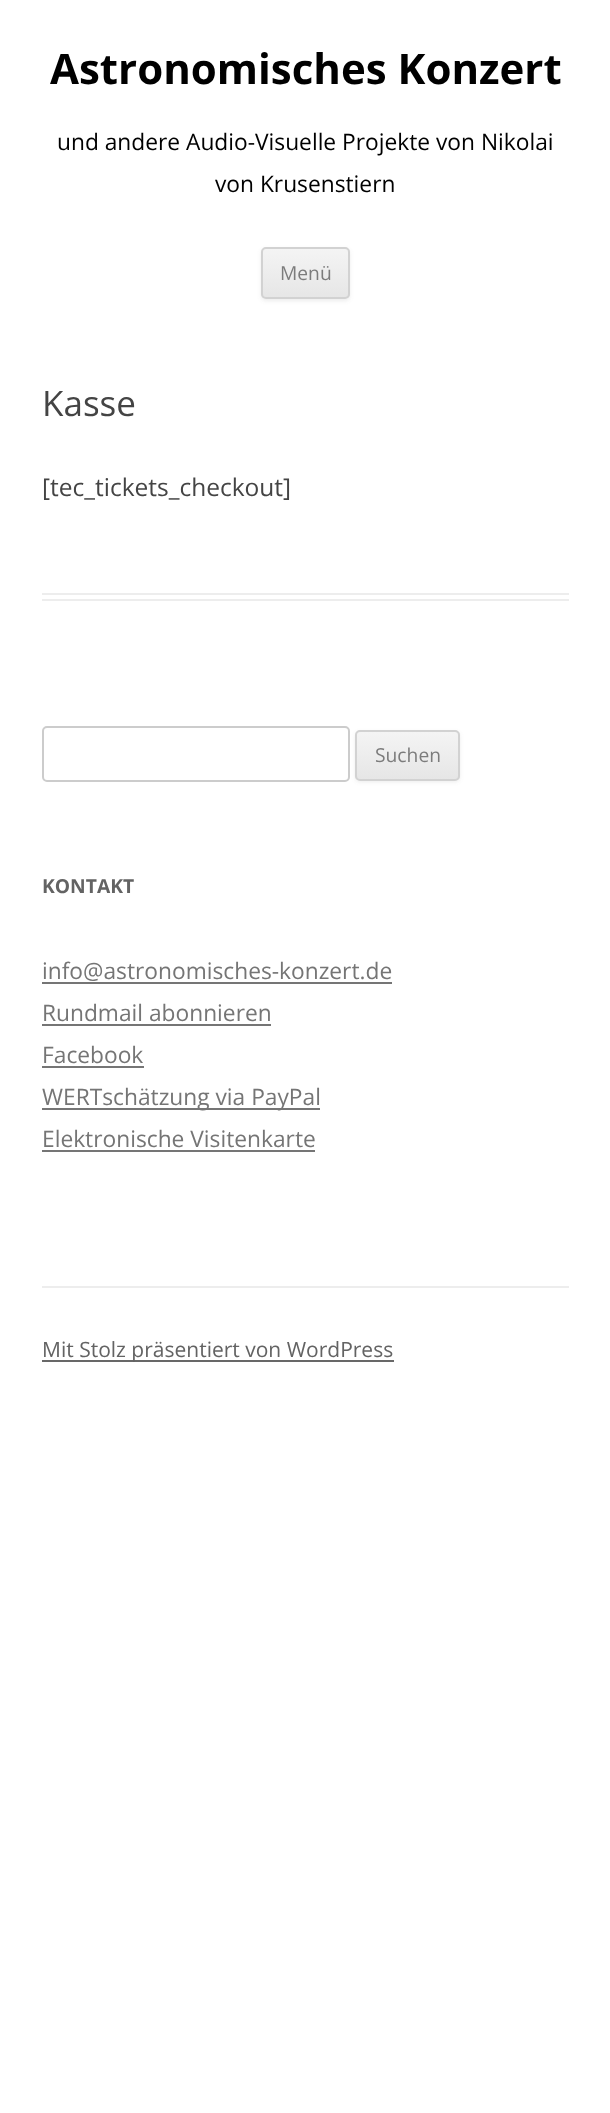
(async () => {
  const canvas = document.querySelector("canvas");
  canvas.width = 610;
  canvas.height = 2113;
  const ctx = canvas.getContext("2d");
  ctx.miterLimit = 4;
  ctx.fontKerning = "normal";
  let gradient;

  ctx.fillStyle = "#ffffff";
  ctx.fillRect(0, 0, 610, 2113);
  ctx.fillStyle = "rgba(64, 64, 64, 0.1)";
  ctx.filter = "blur(2px)";
  ctx.beginPath();
  ctx.roundRect(261, 249, 89, 52, 5);
  ctx.fill();
  ctx.filter = "none";
  ctx.save();
  ctx.beginPath();
  ctx.roundRect(261, 247, 89, 52, 5);
  ctx.clip();
  gradient = ctx.createLinearGradient(305, 249, 305, 298);
  gradient.addColorStop(0, "#f4f4f4");
  gradient.addColorStop(1, "#e6e6e6");
  ctx.fillStyle = gradient;
  ctx.fillRect(261, 249, 89, 49);
  ctx.restore();
  ctx.beginPath();
  ctx.roundRect(262, 248, 87, 50, 4);
  ctx.strokeStyle = "#d2d2d2";
  ctx.lineWidth = 2;
  ctx.stroke();
  ctx.fillStyle = "#ededed";
  ctx.fillRect(42, 593, 527, 2);
  ctx.fillRect(42, 599, 527, 2);
  ctx.beginPath();
  ctx.roundRect(43, 727, 306, 54, 4);
  ctx.strokeStyle = "#cccccc";
  ctx.stroke();
  ctx.fillStyle = "rgba(64, 64, 64, 0.1)";
  ctx.filter = "blur(2px)";
  ctx.beginPath();
  ctx.roundRect(355, 732, 105, 50, 5);
  ctx.fill();
  ctx.filter = "none";
  ctx.save();
  ctx.beginPath();
  ctx.roundRect(355, 730, 105, 51, 5);
  ctx.clip();
  gradient = ctx.createLinearGradient(408, 732, 408, 779);
  gradient.addColorStop(0, "#f4f4f4");
  gradient.addColorStop(1, "#e6e6e6");
  ctx.fillStyle = gradient;
  ctx.fillRect(355, 732, 105, 47);
  ctx.restore();
  ctx.beginPath();
  ctx.roundRect(356, 731, 103, 49, 4);
  ctx.strokeStyle = "#d2d2d2";
  ctx.stroke();
  for (const [x, y, w, h, color] of [
    [42, 982, 350, 2, "#757575"],
    [42, 1024, 229, 2, "#757575"],
    [42, 1066, 102, 2, "#757575"],
    [42, 1108, 278, 2, "#757575"],
    [42, 1150, 273, 2, "#757575"],
    [42, 1286, 527, 2, "#ededed"],
    [42, 1360, 352, 2, "#686868"],
  ]) {
    ctx.fillStyle = color;
    ctx.fillRect(x, y, w, h);
  }
  ctx.font = "bold 42px Open Sans";
  ctx.fillStyle = "#000000";
  ctx.fillText("Astronomisches Konzert", 50, 84);
  ctx.font = "22.75px Open Sans";
  ctx.fillText("und andere Audio-Visuelle Projekte von Nikolai", 57, 150);
  ctx.fillText("von Krusenstiern", 215, 192);
  ctx.font = "19.25px Open Sans";
  ctx.fillStyle = "#7c7c7c";
  ctx.fillText("Menü", 280, 280);
  ctx.font = "35px Open Sans";
  ctx.fillStyle = "#444444";
  ctx.fillText("Kasse", 42, 416);
  ctx.font = "24.5px Open Sans";
  ctx.fillText("[tec_tickets_checkout]", 42, 496);
  ctx.font = "19.25px Open Sans";
  ctx.fillStyle = "#7c7c7c";
  ctx.fillText("Suchen", 375, 762);
  ctx.font = "bold 19.25px Open Sans";
  ctx.fillStyle = "#636363";
  ctx.fillText("KONTAKT", 42, 893);
  ctx.font = "22.75px Open Sans";
  ctx.fillStyle = "#757575";
  for (const [text, x, y] of [
    ["info@astronomisches-konzert.de", 42, 979],
    ["Rundmail abonnieren", 42, 1021],
    ["Facebook", 42, 1063],
    ["WERTschätzung via PayPal", 42, 1105],
    ["Elektronische Visitenkarte", 42, 1147],
  ]) {
    ctx.fillText(text, x, y);
  }
  ctx.font = "21px Open Sans";
  ctx.fillStyle = "#636363";
  ctx.fillText("Mit Stolz präsentiert von WordPress", 42, 1357);
})();
